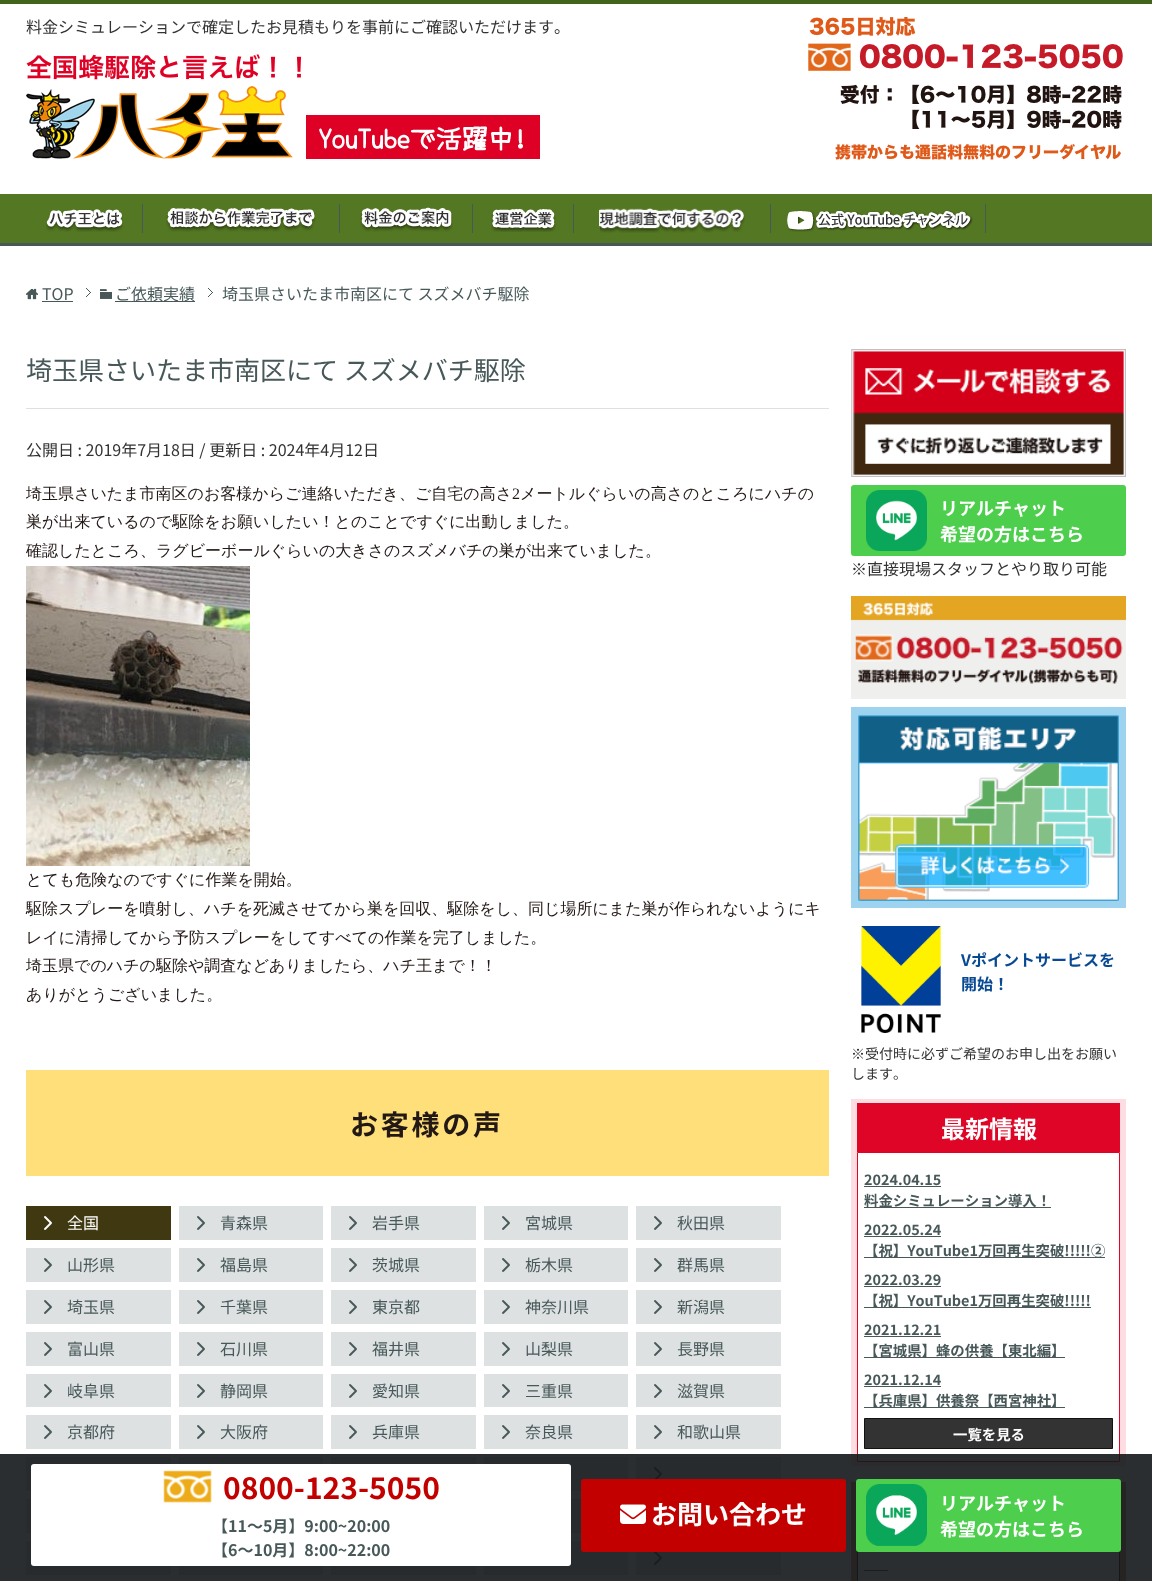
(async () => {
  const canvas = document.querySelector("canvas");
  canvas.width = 1152;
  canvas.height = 1581;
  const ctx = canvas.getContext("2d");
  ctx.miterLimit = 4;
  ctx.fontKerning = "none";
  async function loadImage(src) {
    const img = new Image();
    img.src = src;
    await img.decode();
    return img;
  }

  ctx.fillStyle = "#ffffff";
  ctx.fillRect(0, 0, 1152, 1581);
  ctx.fillStyle = "#43621b";
  ctx.fillRect(0, 0, 1152, 4);
  ctx.drawImage(await loadImage("img/1.png"), 26, 54, 514, 105);
  ctx.drawImage(await loadImage("img/2.png"), 808, 17, 315, 143);
  ctx.fillStyle = "#537722";
  ctx.fillRect(0, 194, 1152, 49);
  ctx.fillStyle = "#485859";
  ctx.fillRect(0, 243, 1152, 3);
  ctx.drawImage(await loadImage("img/3.png"), 46, 209, 77, 23);
  ctx.fillRect(339, 204, 1, 29);
  ctx.fillRect(142, 204, 1, 29);
  ctx.drawImage(await loadImage("img/4.png"), 166, 208, 150, 24);
  ctx.drawImage(await loadImage("img/5.png"), 360, 207, 93, 25);
  ctx.fillRect(573, 204, 1, 29);
  ctx.fillRect(472, 204, 1, 29);
  ctx.drawImage(await loadImage("img/6.png"), 491, 208, 65, 24);
  ctx.drawImage(await loadImage("img/7.png"), 599, 208, 146, 25);
  ctx.fillRect(985, 204, 1, 29);
  ctx.fillRect(770, 204, 1, 29);
  ctx.drawImage(await loadImage("img/8.png"), 787, 210, 186, 22);
  ctx.drawImage(await loadImage("img/9.png"), 86, 288, 5, 9);
  ctx.drawImage(await loadImage("img/10.png"), 26, 288, 12, 12);
  ctx.fillRect(42, 301, 31, 1);
  ctx.drawImage(await loadImage("img/9.png"), 208, 288, 5, 9);
  ctx.drawImage(await loadImage("img/11.png"), 100, 289, 12, 10);
  ctx.fillRect(115, 301, 80, 1);
  ctx.fillStyle = "#dde1e1";
  ctx.fillRect(26, 408, 803, 1);
  ctx.drawImage(await loadImage("img/12.png"), 26, 566, 224, 300);
  ctx.fillStyle = "#fedf7a";
  ctx.fillRect(26, 1070, 803, 106);
  ctx.fillStyle = "#403811";
  ctx.fillRect(26, 1206, 145, 34);
  ctx.drawImage(await loadImage("img/13.png"), 44, 1216, 8, 14);
  ctx.fillStyle = "#dde1e1";
  ctx.fillRect(179, 1206, 144, 34);
  ctx.drawImage(await loadImage("img/14.png"), 197, 1216, 8, 14);
  ctx.fillRect(331, 1206, 145, 34);
  ctx.drawImage(await loadImage("img/14.png"), 349, 1216, 8, 14);
  ctx.fillRect(484, 1206, 144, 34);
  ctx.drawImage(await loadImage("img/14.png"), 502, 1216, 8, 14);
  ctx.fillRect(636, 1206, 145, 34);
  ctx.drawImage(await loadImage("img/14.png"), 654, 1216, 8, 14);
  ctx.fillRect(26, 1248, 145, 34);
  ctx.drawImage(await loadImage("img/14.png"), 44, 1258, 8, 14);
  ctx.fillRect(179, 1248, 144, 34);
  ctx.drawImage(await loadImage("img/14.png"), 197, 1258, 8, 14);
  ctx.fillRect(331, 1248, 145, 34);
  ctx.drawImage(await loadImage("img/14.png"), 349, 1258, 8, 14);
  ctx.fillRect(484, 1248, 144, 34);
  ctx.drawImage(await loadImage("img/14.png"), 502, 1258, 8, 14);
  ctx.fillRect(636, 1248, 145, 34);
  ctx.drawImage(await loadImage("img/14.png"), 654, 1258, 8, 14);
  ctx.fillRect(26, 1290, 145, 34);
  ctx.drawImage(await loadImage("img/14.png"), 44, 1300, 8, 14);
  ctx.fillRect(179, 1290, 144, 34);
  ctx.drawImage(await loadImage("img/14.png"), 197, 1300, 8, 14);
  ctx.fillRect(331, 1290, 145, 34);
  ctx.drawImage(await loadImage("img/14.png"), 349, 1300, 8, 14);
  ctx.fillRect(484, 1290, 144, 34);
  ctx.drawImage(await loadImage("img/14.png"), 502, 1300, 8, 14);
  ctx.fillRect(636, 1290, 145, 34);
  ctx.drawImage(await loadImage("img/14.png"), 654, 1300, 8, 14);
  ctx.fillRect(26, 1332, 145, 34);
  ctx.drawImage(await loadImage("img/14.png"), 44, 1342, 8, 14);
  ctx.fillRect(179, 1332, 144, 34);
  ctx.drawImage(await loadImage("img/14.png"), 197, 1342, 8, 14);
  ctx.fillRect(331, 1332, 145, 34);
  ctx.drawImage(await loadImage("img/14.png"), 349, 1342, 8, 14);
  ctx.fillRect(484, 1332, 144, 34);
  ctx.drawImage(await loadImage("img/14.png"), 502, 1342, 8, 14);
  ctx.fillRect(636, 1332, 145, 34);
  ctx.drawImage(await loadImage("img/14.png"), 654, 1342, 8, 14);
  ctx.fillRect(26, 1374, 145, 33);
  ctx.drawImage(await loadImage("img/14.png"), 44, 1384, 8, 14);
  ctx.fillRect(179, 1374, 144, 33);
  ctx.drawImage(await loadImage("img/14.png"), 197, 1384, 8, 14);
  ctx.fillRect(331, 1374, 145, 33);
  ctx.drawImage(await loadImage("img/14.png"), 349, 1384, 8, 14);
  ctx.fillRect(484, 1374, 144, 33);
  ctx.drawImage(await loadImage("img/14.png"), 502, 1384, 8, 14);
  ctx.fillRect(636, 1374, 145, 33);
  ctx.drawImage(await loadImage("img/14.png"), 654, 1384, 8, 14);
  ctx.fillRect(26, 1415, 145, 34);
  ctx.drawImage(await loadImage("img/14.png"), 44, 1425, 8, 14);
  ctx.fillRect(179, 1415, 144, 34);
  ctx.drawImage(await loadImage("img/14.png"), 197, 1425, 8, 14);
  ctx.fillRect(331, 1415, 145, 34);
  ctx.drawImage(await loadImage("img/14.png"), 349, 1425, 8, 14);
  ctx.fillRect(484, 1415, 144, 34);
  ctx.drawImage(await loadImage("img/14.png"), 502, 1425, 8, 14);
  ctx.fillRect(636, 1415, 145, 34);
  ctx.drawImage(await loadImage("img/14.png"), 654, 1425, 8, 14);
  for (const [x, y, w, h, color] of [
    [26, 1457, 145, 34, "#dde1e1"],
    [179, 1457, 144, 7, "#dde1e1"],
    [331, 1457, 145, 7, "#dde1e1"],
    [484, 1457, 144, 34, "#dde1e1"],
    [636, 1457, 145, 22, "#dde1e1"],
  ]) {
    ctx.fillStyle = color;
    ctx.fillRect(x, y, w, h);
  }
  ctx.drawImage(await loadImage("img/15.png"), 654, 1467, 8, 12);
  for (const [x, y, w, h, color] of [
    [26, 1499, 5, 34, "#dde1e1"],
    [571, 1499, 10, 34, "#dde1e1"],
    [26, 1541, 145, 34, "#dde1e1"],
    [179, 1566, 144, 9, "#dde1e1"],
    [331, 1566, 145, 9, "#dde1e1"],
    [484, 1541, 144, 34, "#dde1e1"],
    [636, 1552, 145, 23, "#dde1e1"],
  ]) {
    ctx.fillStyle = color;
    ctx.fillRect(x, y, w, h);
  }
  ctx.drawImage(await loadImage("img/16.png"), 654, 1552, 8, 13);
  ctx.drawImage(await loadImage("img/17.png"), 851, 349, 275, 128);
  ctx.fillStyle = "#4dce4d";
  ctx.beginPath();
  ctx.roundRect(851, 485, 275, 71, 3);
  ctx.fill();
  ctx.drawImage(await loadImage("img/18.png"), 866, 490, 61, 61);
  ctx.drawImage(await loadImage("img/19.png"), 851, 596, 275, 103);
  ctx.drawImage(await loadImage("img/20.png"), 851, 707, 275, 201);
  ctx.drawImage(await loadImage("img/21.png"), 861, 926, 80, 107);
  ctx.fillStyle = "#fddce2";
  ctx.fillRect(851, 1099, 275, 367);
  ctx.fillStyle = "#de0526";
  ctx.fillRect(857, 1103, 263, 49);
  ctx.fillStyle = "#ffffff";
  ctx.beginPath();
  ctx.rect(857.5, 1152.5, 262, 309);
  ctx.fill();
  ctx.strokeStyle = "#de0526";
  ctx.stroke();
  for (const [x, y, w, h, color] of [
    [864, 1186, 77, 1, "#485859"],
    [864, 1207, 187, 1, "#485859"],
    [864, 1236, 77, 1, "#485859"],
    [864, 1257, 241, 1, "#485859"],
    [864, 1286, 77, 1, "#485859"],
    [864, 1307, 227, 1, "#485859"],
    [864, 1336, 77, 1, "#485859"],
    [864, 1357, 201, 1, "#485859"],
    [864, 1386, 77, 1, "#485859"],
    [864, 1407, 201, 1, "#485859"],
  ]) {
    ctx.fillStyle = color;
    ctx.fillRect(x, y, w, h);
  }
  ctx.fillStyle = "#333333";
  ctx.beginPath();
  ctx.rect(864.5, 1418.5, 248, 30);
  ctx.fill();
  ctx.strokeStyle = "#111111";
  ctx.stroke();
  ctx.fillStyle = "#c79a7f";
  ctx.fillRect(851, 1482, 275, 99);
  ctx.fillStyle = "#ffffff";
  ctx.fillRect(858, 1551, 261, 30);
  ctx.strokeStyle = "#211916";
  ctx.strokeRect(857.5, 1536.5, 262, 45);
  ctx.fillStyle = "#485859";
  ctx.fillRect(864, 1570, 24, 1);
  ctx.fillStyle = "rgba(20, 23, 26, 0.9)";
  ctx.fillRect(0, 1454, 1152, 127);
  ctx.fillStyle = "#ffffff";
  ctx.beginPath();
  ctx.roundRect(31, 1464, 540, 102, 3);
  ctx.fill();
  ctx.drawImage(await loadImage("img/22.png"), 163, 1470, 49, 33);
  ctx.fillStyle = "#c30000";
  ctx.beginPath();
  ctx.roundRect(581, 1479, 265, 73, 3);
  ctx.fill();
  ctx.drawImage(await loadImage("img/23.png"), 620, 1504, 26, 20);
  ctx.fillStyle = "#4dce4d";
  ctx.beginPath();
  ctx.roundRect(856, 1479, 265, 73, 3);
  ctx.fill();
  ctx.drawImage(await loadImage("img/24.png"), 866, 1484, 61, 62);
  ctx.font = "16px Noto Sans JP";
  ctx.fillStyle = "#333333";
  ctx.fillText("料金シミュレーションで確定したお見積もりを事前にご確認いただけます。", 26, 33);
  ctx.fillStyle = "#485859";
  for (const [text, x, y] of [
    ["TOP", 42, 300],
    ["ご依頼実績", 115, 300],
    ["埼玉県さいたま市南区にて スズメバチ駆除", 222, 300],
  ]) {
    ctx.fillText(text, x, y);
  }
  ctx.font = "26px Noto Sans JP";
  ctx.fillText("埼玉県さいたま市南区にて スズメバチ駆除", 26, 380);
  ctx.font = "16px Noto Sans JP";
  ctx.fillStyle = "#333333";
  ctx.fillText("公開日 : 2019年7月18日 / 更新日 : 2024年4月12日", 26, 456);
  ctx.font = "500 16px WenQuanYi Zen Hei";
  ctx.fillStyle = "#221815";
  ctx.fillText("埼玉県さいたま市南区のお客様からご連絡いただき、ご自宅の高さ", 26, 499);
  ctx.font = "16px Liberation Serif";
  ctx.fillText("2", 512, 499);
  ctx.font = "500 16px WenQuanYi Zen Hei";
  for (const [text, x, y] of [
    ["メートルぐらいの高さのところにハチの", 520, 499],
    ["巣が出来ているので駆除をお願いしたい！とのことですぐに出動しました。", 26, 527],
    ["確認したところ、ラグビーボールぐらいの大きさのスズメバチの巣が出来ていました。", 26, 556],
    ["とても危険なのですぐに作業を開始。", 26, 885],
    ["駆除スプレーを噴射し、ハチを死滅させてから巣を回収、駆除をし、同じ場所にまた巣が作られないようにキ", 26, 914],
    ["レイに清掃してから予防スプレーをしてすべての作業を完了しました。", 26, 943],
    ["埼玉県でのハチの駆除や調査などありましたら、ハチ王まで！！", 26, 971],
    ["ありがとうございました。", 26, 1000],
  ]) {
    ctx.fillText(text, x, y);
  }
  ctx.letterSpacing = "2.75px";
  ctx.font = "bold 28px Noto Sans JP";
  ctx.fillText("お客様の声", 350, 1135);
  ctx.letterSpacing = "0px";
  ctx.font = "16px Noto Sans JP";
  ctx.fillStyle = "#ffffff";
  ctx.fillText("全国", 67, 1229);
  ctx.fillStyle = "#485859";
  for (const [text, x, y] of [
    ["青森県", 220, 1229],
    ["岩手県", 372, 1229],
    ["宮城県", 525, 1229],
    ["秋田県", 677, 1229],
    ["山形県", 67, 1271],
    ["福島県", 220, 1271],
    ["茨城県", 372, 1271],
    ["栃木県", 525, 1271],
    ["群馬県", 677, 1271],
    ["埼玉県", 67, 1313],
    ["千葉県", 220, 1313],
    ["東京都", 372, 1313],
    ["神奈川県", 525, 1313],
    ["新潟県", 677, 1313],
    ["富山県", 67, 1355],
    ["石川県", 220, 1355],
    ["福井県", 372, 1355],
    ["山梨県", 525, 1355],
    ["長野県", 677, 1355],
    ["岐阜県", 67, 1397],
    ["静岡県", 220, 1397],
    ["愛知県", 372, 1397],
    ["三重県", 525, 1397],
    ["滋賀県", 677, 1397],
    ["京都府", 67, 1438],
    ["大阪府", 220, 1438],
    ["兵庫県", 372, 1438],
    ["奈良県", 525, 1438],
    ["和歌山県", 677, 1438],
  ]) {
    ctx.fillText(text, x, y);
  }
  ctx.font = "bold 18px Noto Sans JP";
  ctx.fillStyle = "#ffffff";
  ctx.fillText("リアルチャット", 940, 515);
  ctx.fillText("希望の方はこちら", 940, 541);
  ctx.font = "16px Noto Sans JP";
  ctx.fillStyle = "#333333";
  ctx.fillText("※直接現場スタッフとやり取り可能", 851, 575);
  ctx.font = "bold 16px Noto Sans JP";
  ctx.fillStyle = "#084993";
  ctx.fillText("Vポイントサービスを", 961, 966);
  ctx.fillText("開始！", 961, 990);
  ctx.font = "14px Noto Sans JP";
  ctx.fillStyle = "#333333";
  ctx.fillText("※受付時に必ずご希望のお申し出をお願い", 851, 1059);
  ctx.fillText("します。", 851, 1079);
  ctx.font = "bold 24px Noto Sans JP";
  ctx.fillStyle = "#ffffff";
  ctx.fillText("最新情報", 941, 1138);
  ctx.font = "bold 14.4px Noto Sans JP";
  ctx.fillStyle = "#485859";
  for (const [text, x, y] of [
    ["2024.04.15", 864, 1185],
    ["料金シミュレーション導入！", 864, 1206],
    ["2022.05.24", 864, 1235],
    ["【祝】YouTube1万回再生突破!!!!!②", 864, 1256],
    ["2022.03.29", 864, 1285],
    ["【祝】YouTube1万回再生突破!!!!!", 864, 1306],
    ["2021.12.21", 864, 1335],
    ["【宮城県】蜂の供養【東北編】", 864, 1356],
    ["2021.12.14", 864, 1385],
    ["【兵庫県】供養祭【西宮神社】", 864, 1406],
  ]) {
    ctx.fillText(text, x, y);
  }
  ctx.fillStyle = "#ffffff";
  ctx.fillText("一覧を見る", 953, 1440);
  ctx.font = "bold 30px Noto Sans JP";
  ctx.fillStyle = "#c30000";
  ctx.fillText("0800-123-5050", 223, 1499);
  ctx.font = "bold 16px Noto Sans JP";
  ctx.fillStyle = "#485859";
  ctx.fillText("【11～5月】9:00~20:00", 212, 1532);
  ctx.fillText("【6～10月】8:00~22:00", 212, 1556);
  ctx.font = "bold 26px Noto Sans JP";
  ctx.fillStyle = "#ffffff";
  ctx.fillText("お問い合わせ", 651, 1524);
  ctx.font = "bold 18px Noto Sans JP";
  ctx.fillText("リアルチャット", 940, 1510);
  ctx.fillText("希望の方はこちら", 940, 1536);
})();
